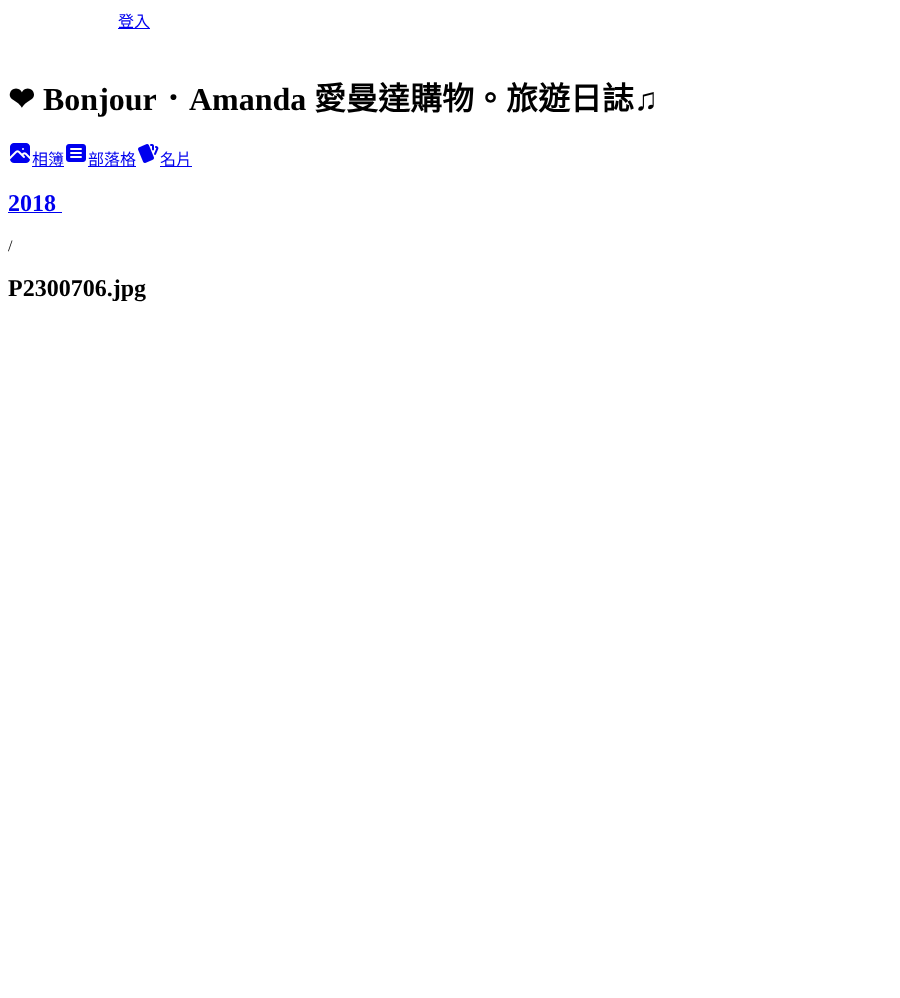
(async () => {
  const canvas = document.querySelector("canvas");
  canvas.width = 900;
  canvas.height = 998;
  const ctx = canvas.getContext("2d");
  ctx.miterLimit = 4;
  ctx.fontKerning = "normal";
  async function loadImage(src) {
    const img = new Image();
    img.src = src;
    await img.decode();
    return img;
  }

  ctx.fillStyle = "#ffffff";
  ctx.fillRect(0, 0, 900, 998);
  ctx.fillStyle = "#0000ee";
  ctx.fillRect(118, 28, 32, 1);
  ctx.drawImage(await loadImage("img/1.png"), 10, 143, 20, 20);
  ctx.fillRect(32, 166, 32, 1);
  ctx.drawImage(await loadImage("img/2.png"), 66, 144, 20, 18);
  ctx.fillRect(88, 166, 48, 1);
  ctx.drawImage(await loadImage("img/3.png"), 138, 144, 21, 19);
  ctx.fillRect(160, 166, 32, 1);
  ctx.fillRect(8, 212, 54, 1);
  ctx.font = "16px Noto Sans CJK TC";
  ctx.fillText("登入", 118, 27);
  ctx.font = "bold 32px DejaVu Sans";
  ctx.fillStyle = "#000000";
  ctx.fillText("❤", 8, 110);
  ctx.font = "bold 32px Liberation Serif";
  ctx.fillText("Bonjour", 43, 110);
  ctx.font = "bold 32px Noto Sans CJK TC";
  ctx.fillText("．", 157, 110);
  ctx.font = "bold 32px Liberation Serif";
  ctx.fillText("Amanda", 189, 110);
  ctx.font = "bold 32px Noto Sans CJK TC";
  ctx.fillText("愛曼達購物。旅遊日誌", 314, 110);
  ctx.font = "bold 32px Liberation Serif";
  ctx.fillText("♫", 634, 110);
  ctx.font = "16px Noto Sans CJK TC";
  ctx.fillStyle = "#0000ee";
  for (const [text, x, y] of [
    ["相簿", 32, 165],
    ["部落格", 88, 165],
    ["名片", 160, 165],
  ]) {
    ctx.fillText(text, x, y);
  }
  ctx.font = "bold 24px Liberation Serif";
  ctx.fillText("2018 ︎", 8, 211);
  ctx.font = "16px Liberation Serif";
  ctx.fillStyle = "#000000";
  ctx.fillText("/", 8, 251);
  ctx.font = "bold 24px Liberation Serif";
  ctx.fillText("P2300706.jpg", 8, 296);
})();
